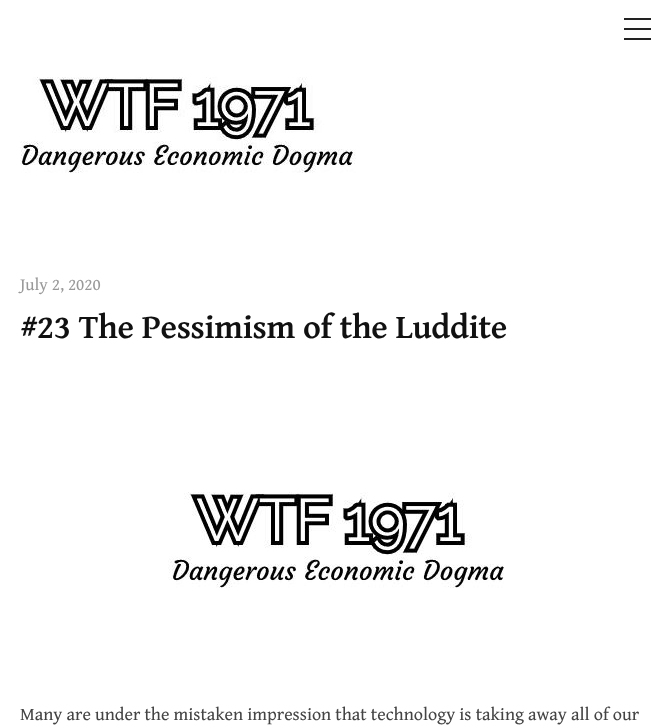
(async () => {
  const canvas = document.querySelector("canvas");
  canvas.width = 661;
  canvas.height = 728;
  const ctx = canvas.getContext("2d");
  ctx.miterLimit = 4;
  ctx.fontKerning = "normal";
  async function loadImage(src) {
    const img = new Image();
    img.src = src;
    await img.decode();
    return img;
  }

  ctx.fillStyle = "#ffffff";
  ctx.fillRect(0, 0, 661, 728);
  for (const [x, y, w, h, color] of [
    [624, 28, 27, 2, "#222222"],
    [624, 18, 27, 2, "#222222"],
    [624, 38, 27, 2, "#222222"],
  ]) {
    ctx.fillStyle = color;
    ctx.fillRect(x, y, w, h);
  }
  ctx.drawImage(await loadImage("img/1.png"), 20, 77, 336, 96);
  ctx.drawImage(await loadImage("img/2.png"), 168, 492, 336, 96);
  ctx.font = "17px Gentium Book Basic";
  ctx.fillStyle = "#999999";
  ctx.fillText("July 2, 2020", 20, 290);
  ctx.letterSpacing = "-0.35px";
  ctx.font = "bold 34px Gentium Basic";
  ctx.fillStyle = "#111111";
  ctx.fillText("#23 The Pessimism of the Luddite", 20, 338);
  ctx.letterSpacing = "0px";
  ctx.font = "18px Gentium Book Basic";
  ctx.fillStyle = "#444444";
  ctx.fillText("Many are under the mistaken impression that technology is taking away all of our", 20, 720);
})();
